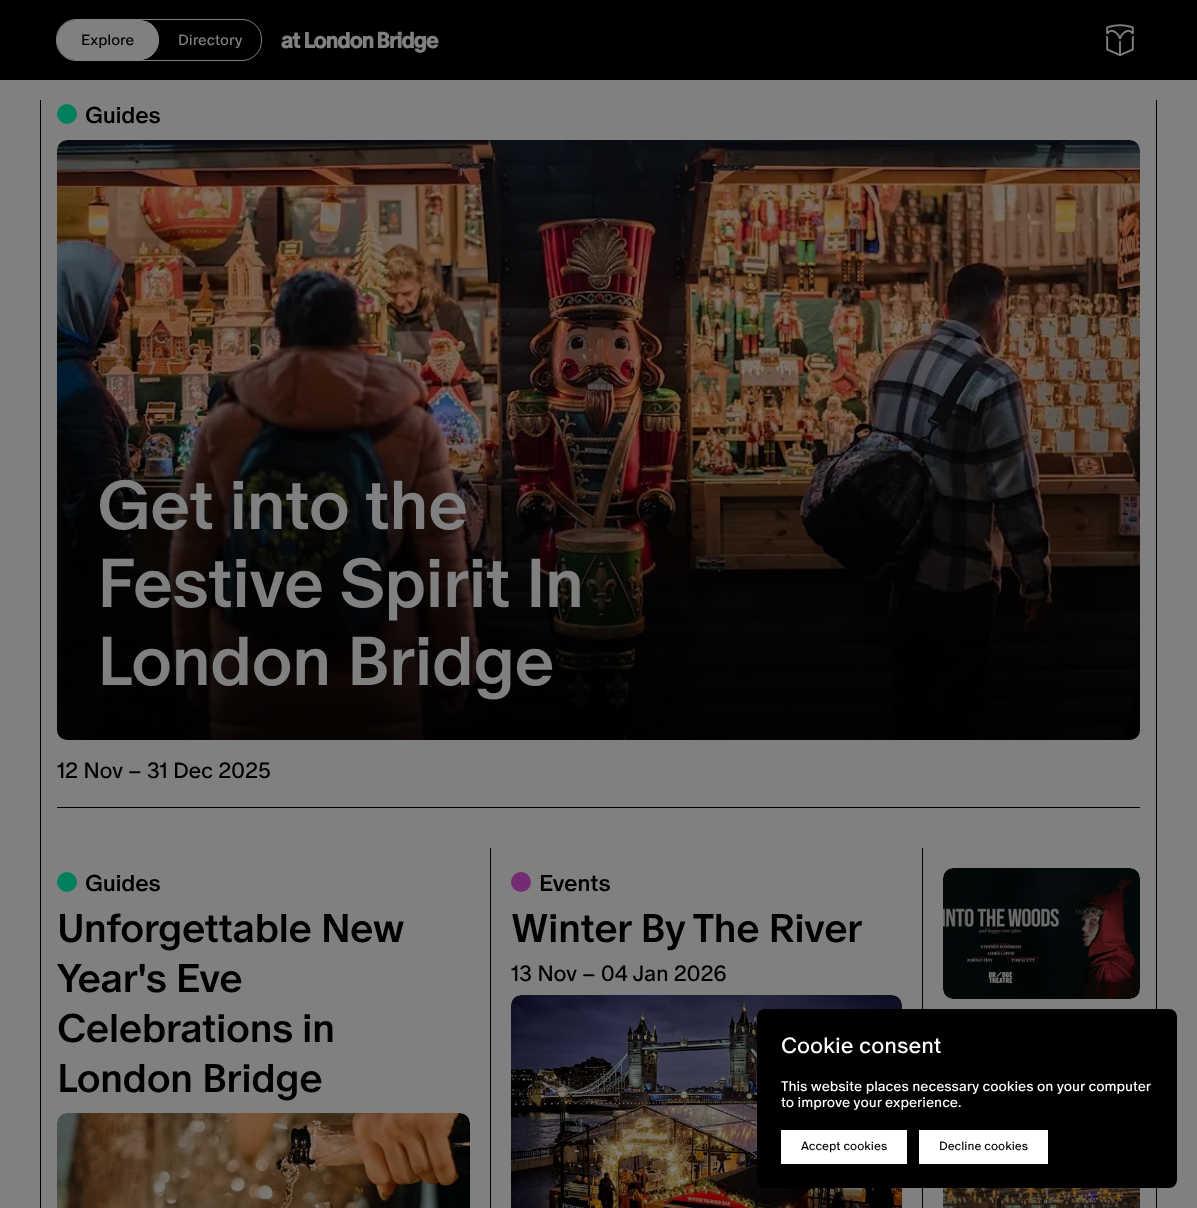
(async () => {
  const canvas = document.querySelector("canvas");
  canvas.width = 1197;
  canvas.height = 1208;
  const ctx = canvas.getContext("2d");
  ctx.miterLimit = 4;
  ctx.fontKerning = "normal";
  async function loadImage(src) {
    const img = new Image();
    img.src = src;
    await img.decode();
    return img;
  }
  let gradient;

  ctx.fillStyle = "#808080";
  ctx.fillRect(0, 0, 1197, 1208);
  ctx.fillStyle = "#000000";
  ctx.fillRect(0, 0, 1197, 80);
  ctx.beginPath();
  ctx.roundRect(56.5, 19.5, 205, 41, 19.5);
  ctx.strokeStyle = "#808080";
  ctx.stroke();
  ctx.save();
  ctx.beginPath();
  ctx.roundRect(57, 20, 204, 40, 19);
  ctx.clip();
  ctx.fillStyle = "#808080";
  ctx.beginPath();
  ctx.roundRect(55, 20, 104, 40, 20);
  ctx.fill();
  ctx.beginPath();
  ctx.roundRect(57, 20, 102, 40, 20);
  ctx.fill();
  ctx.restore();
  ctx.drawImage(await loadImage("img/1.png"), 281, 31, 158, 22);
  ctx.drawImage(await loadImage("img/2.png"), 1106, 24, 28, 33);
  for (const [x, y, w, h, color] of [
    [1156, 100, 1, 1108, "#000000"],
    [40, 100, 1, 1108, "#000000"],
    [57, 807, 1083, 1, "#000000"],
  ]) {
    ctx.fillStyle = color;
    ctx.fillRect(x, y, w, h);
  }
  ctx.fillStyle = "#02805e";
  ctx.beginPath();
  ctx.arc(67, 114, 10, 0, Math.PI * 2);
  ctx.fill();
  ctx.fillStyle = "#7b7b7b";
  ctx.beginPath();
  ctx.roundRect(57, 140, 1083, 600, 10);
  ctx.fill();
  ctx.drawImage(await loadImage("img/3.png"), 57, 140, 1083, 600);
  gradient = ctx.createLinearGradient(599, 740, 599, 366);
  gradient.addColorStop(0, "rgba(0, 0, 0, 0.75)");
  gradient.addColorStop(0.85, "rgba(0, 0, 0, 0)");
  ctx.fillStyle = gradient;
  ctx.beginPath();
  ctx.roundRect(57, 366, 1083, 374, [0, 0, 10, 10]);
  ctx.fill();
  ctx.fillStyle = "#02805e";
  ctx.beginPath();
  ctx.arc(67, 882, 10, 0, Math.PI * 2);
  ctx.fill();
  ctx.drawImage(await loadImage("img/4.png"), 57, 1113, 413, 95);
  ctx.fillStyle = "#000000";
  ctx.fillRect(922, 848, 1, 360);
  ctx.fillRect(490, 848, 1, 360);
  ctx.fillStyle = "#732b71";
  ctx.beginPath();
  ctx.arc(521, 882, 10, 0, Math.PI * 2);
  ctx.fill();
  ctx.drawImage(await loadImage("img/5.png"), 511, 995, 391, 213);
  ctx.drawImage(await loadImage("img/6.png"), 943, 868, 197, 131);
  ctx.drawImage(await loadImage("img/7.png"), 943, 1188, 197, 20);
  ctx.fillStyle = "#000000";
  ctx.beginPath();
  ctx.roundRect(757, 1009, 420, 179, 8);
  ctx.fill();
  ctx.fillStyle = "#ffffff";
  ctx.fillRect(781, 1130, 126, 34);
  ctx.fillRect(919, 1130, 129, 34);
  ctx.font = "15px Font";
  ctx.fillStyle = "#000000";
  ctx.fillText("Explore", 81, 45);
  ctx.fillStyle = "#808080";
  ctx.fillText("Directory", 178, 45);
  ctx.letterSpacing = "-0.25px";
  ctx.font = "500 23px Font";
  ctx.fillStyle = "#000000";
  ctx.fillText("Guides", 85, 123);
  ctx.letterSpacing = "-0.9px";
  ctx.font = "500 69px Font";
  ctx.fillStyle = "#808080";
  for (const [text, x, y] of [
    ["Get into the", 97, 529],
    ["Festive Spirit In", 97, 607],
    ["London Bridge", 97, 685],
  ]) {
    ctx.fillText(text, x, y);
  }
  ctx.letterSpacing = "-0.25px";
  ctx.font = "22px Font";
  ctx.fillStyle = "#000000";
  ctx.fillText("12 Nov", 57, 778);
  ctx.fillText("– 31 Dec 2025", 128, 778);
  ctx.font = "500 23px Font";
  ctx.fillText("Guides", 85, 891);
  ctx.letterSpacing = "-0.5px";
  ctx.font = "500 40px Font";
  for (const [text, x, y] of [
    ["Unforgettable New", 57, 942],
    ["Year's Eve", 57, 992],
    ["Celebrations in", 57, 1042],
    ["London Bridge", 57, 1092],
  ]) {
    ctx.fillText(text, x, y);
  }
  ctx.letterSpacing = "-0.25px";
  ctx.font = "500 23px Font";
  ctx.fillText("Events", 539, 891);
  ctx.letterSpacing = "-0.5px";
  ctx.font = "500 40px Font";
  ctx.fillText("Winter By The River", 511, 942);
  ctx.letterSpacing = "-0.25px";
  ctx.font = "22px Font";
  ctx.fillText("13 Nov", 511, 981);
  ctx.fillText("– 04 Jan 2026", 582, 981);
  ctx.letterSpacing = "0px";
  ctx.fillStyle = "#ffffff";
  ctx.fillText("Cookie consent", 781, 1053);
  ctx.font = "14px Font";
  ctx.fillText("This website places necessary cookies on your computer", 781, 1091);
  ctx.fillText("to improve your experience.", 781, 1107);
  ctx.font = "12px Font";
  ctx.fillStyle = "#000000";
  ctx.fillText("Accept cookies", 801, 1150);
  ctx.fillText("Decline cookies", 939, 1150);
})();
